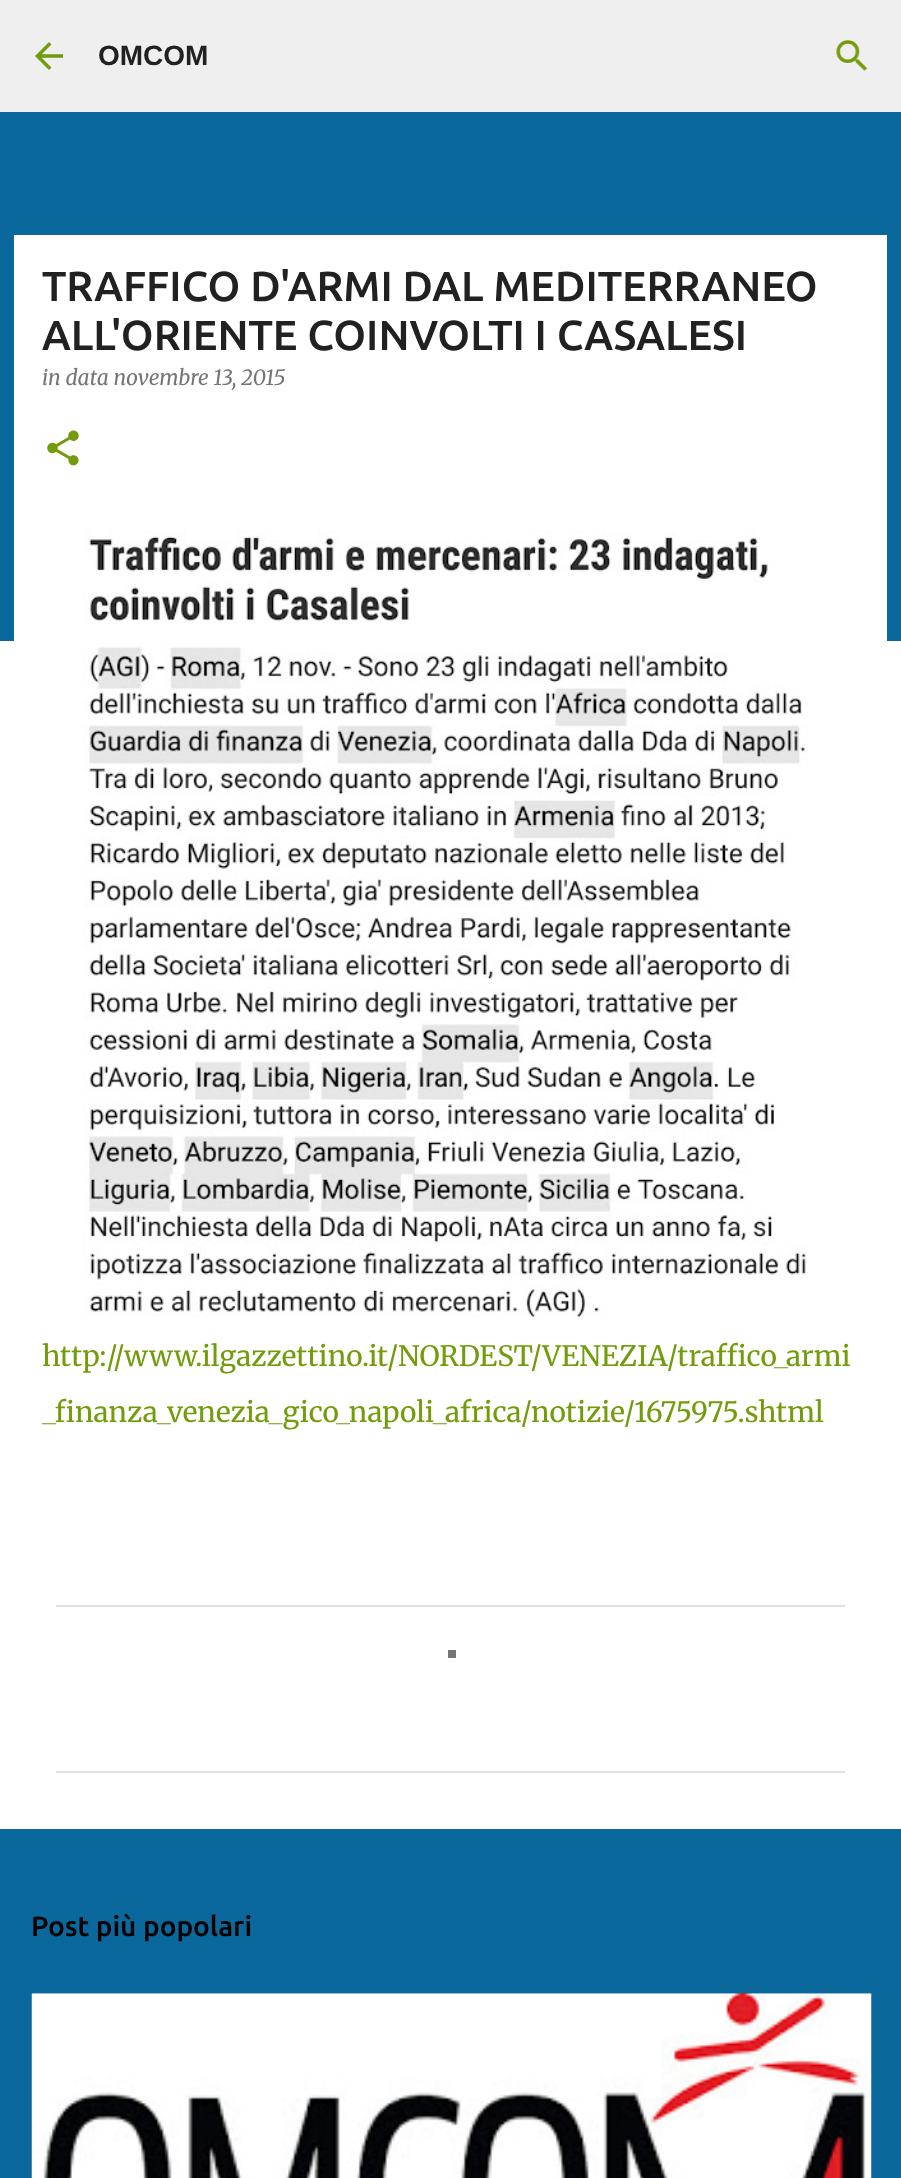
(async () => {
  const canvas = document.querySelector("canvas");
  canvas.width = 901;
  canvas.height = 2178;
  const ctx = canvas.getContext("2d");
  ctx.miterLimit = 4;
  ctx.fontKerning = "normal";
  async function loadImage(src) {
    const img = new Image();
    img.src = src;
    await img.decode();
    return img;
  }

  ctx.fillStyle = "#0a689c";
  ctx.fillRect(0, 0, 901, 2178);
  ctx.fillStyle = "#efefef";
  ctx.fillRect(0, 0, 901, 112);
  ctx.drawImage(await loadImage("img/1.png"), 35, 42, 28, 28);
  ctx.drawImage(await loadImage("img/2.png"), 836, 40, 32, 31);
  ctx.fillStyle = "#ffffff";
  ctx.fillRect(0, 641, 901, 1188);
  ctx.fillRect(14, 235, 873, 406);
  ctx.drawImage(await loadImage("img/3.png"), 47, 430, 32, 36);
  ctx.drawImage(await loadImage("img/4.png"), 83, 530, 725, 789);
  ctx.fillStyle = "#e0e0e0";
  ctx.fillRect(56, 1605, 789, 2);
  ctx.fillRect(56, 1771, 789, 2);
  ctx.drawImage(await loadImage("img/5.png"), 31, 1993, 841, 185);
  ctx.fillStyle = "#757575";
  ctx.fillRect(448, 1650, 8, 8);
  ctx.font = "bold 28px Liberation Sans";
  ctx.fillStyle = "#212121";
  ctx.fillText("OMCOM", 98, 65);
  ctx.font = "500 42px Ubuntu";
  ctx.fillText("TRAFFICO D'ARMI DAL MEDITERRANEO", 42, 301);
  ctx.fillText("ALL'ORIENTE COINVOLTI I CASALESI", 42, 350);
  ctx.font = "italic 21px Merriweather";
  ctx.fillStyle = "#757575";
  ctx.fillText("in data novembre 13, 2015", 42, 385);
  ctx.font = "300 28px Merriweather";
  ctx.fillStyle = "#729c0b";
  ctx.fillText("http://www.ilgazzettino.it/NORDEST/VENEZIA/traffico_armi", 42, 1366);
  ctx.fillText("_finanza_venezia_gico_napoli_africa/notizie/1675975.shtml", 42, 1422);
  ctx.font = "500 28px Ubuntu";
  ctx.fillStyle = "#000000";
  ctx.fillText("Post più popolari", 31, 1936);
})();
